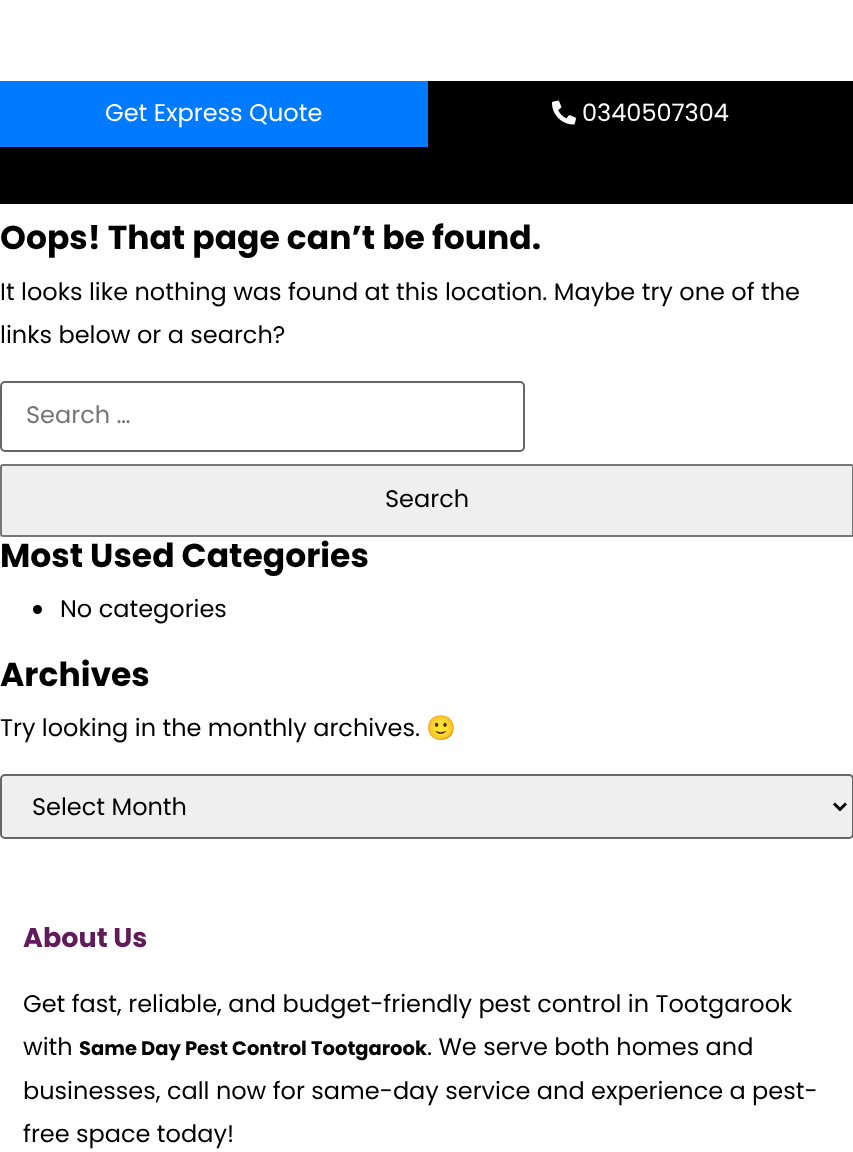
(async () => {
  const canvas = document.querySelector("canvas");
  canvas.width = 853;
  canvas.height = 1152;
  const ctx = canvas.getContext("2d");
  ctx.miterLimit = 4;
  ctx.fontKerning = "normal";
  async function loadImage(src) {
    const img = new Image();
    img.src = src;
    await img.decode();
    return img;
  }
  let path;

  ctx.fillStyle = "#ffffff";
  ctx.fillRect(0, 0, 853, 1152);
  ctx.fillStyle = "#007bff";
  ctx.fillRect(0, 81, 428, 66);
  ctx.fillStyle = "#000000";
  ctx.fillRect(428, 81, 425, 66);
  ctx.drawImage(await loadImage("img/1.png"), 552, 100, 24, 25);
  ctx.fillRect(0, 147, 853, 57);
  ctx.beginPath();
  ctx.roundRect(1, 382, 523, 69, 4);
  ctx.strokeStyle = "#666666";
  ctx.lineWidth = 2;
  ctx.stroke();
  ctx.fillStyle = "#efefef";
  ctx.beginPath();
  ctx.roundRect(1, 465, 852, 71, 2);
  ctx.fill();
  ctx.strokeStyle = "#767676";
  ctx.stroke();
  ctx.fillStyle = "#000000";
  ctx.beginPath();
  ctx.arc(37.5, 609.5, 4.5, 0, Math.PI * 2);
  ctx.fill();
  ctx.fillStyle = "#efefef";
  ctx.beginPath();
  ctx.roundRect(1, 775, 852, 63, 4);
  ctx.fill();
  ctx.strokeStyle = "#666666";
  ctx.stroke();
  path = new Path2D("M834 803.5L840 809.5L846 803.5");
  ctx.strokeStyle = "#000000";
  ctx.lineWidth = 3;
  ctx.stroke(path);
  ctx.font = "24px Poppins";
  ctx.fillStyle = "#ffffff";
  ctx.fillText("Get Express Quote", 105, 121);
  ctx.fillText("0340507304", 582, 121);
  ctx.font = "bold 33px Poppins";
  ctx.fillStyle = "#000000";
  ctx.fillText("Oops! That page can’t be found.", 0, 249);
  ctx.font = "24px Poppins";
  ctx.fillText("It looks like nothing was found at this location. Maybe try one of the", 0, 300);
  ctx.fillText("links below or a search?", 0, 343);
  ctx.fillStyle = "#757575";
  ctx.fillText("Search …", 26, 423);
  ctx.fillStyle = "#000000";
  ctx.fillText("Search", 385, 507);
  ctx.font = "bold 33px Poppins";
  ctx.fillText("Most Used Categories", 0, 567);
  ctx.font = "24px Poppins";
  ctx.fillText("No categories", 60, 617);
  ctx.font = "bold 33px Poppins";
  ctx.fillText("Archives", 0, 686);
  ctx.font = "24px Poppins";
  ctx.fillText("Try looking in the monthly archives.", 0, 736);
  ctx.font = "24px Noto Color Emoji";
  ctx.fillText("🙂", 426, 736);
  ctx.font = "24px Poppins";
  ctx.fillText("Select Month", 32, 815);
  ctx.font = "bold 27px Poppins";
  ctx.fillStyle = "#601b5a";
  ctx.fillText("About Us", 23, 947);
  ctx.font = "24px Poppins";
  ctx.fillStyle = "#000000";
  ctx.fillText("Get fast, reliable, and budget-friendly pest control in Tootgarook", 23, 1012);
  ctx.fillText("with", 23, 1055);
  ctx.font = "bold 19.5px Poppins";
  ctx.fillText("Same Day Pest Control Tootgarook", 79, 1055);
  ctx.font = "24px Poppins";
  for (const [text, x, y] of [
    [". We serve both homes and", 427, 1055],
    ["businesses, call now for same-day service and experience a pest-", 23, 1099],
    ["free space today!", 23, 1142],
  ]) {
    ctx.fillText(text, x, y);
  }
})();
